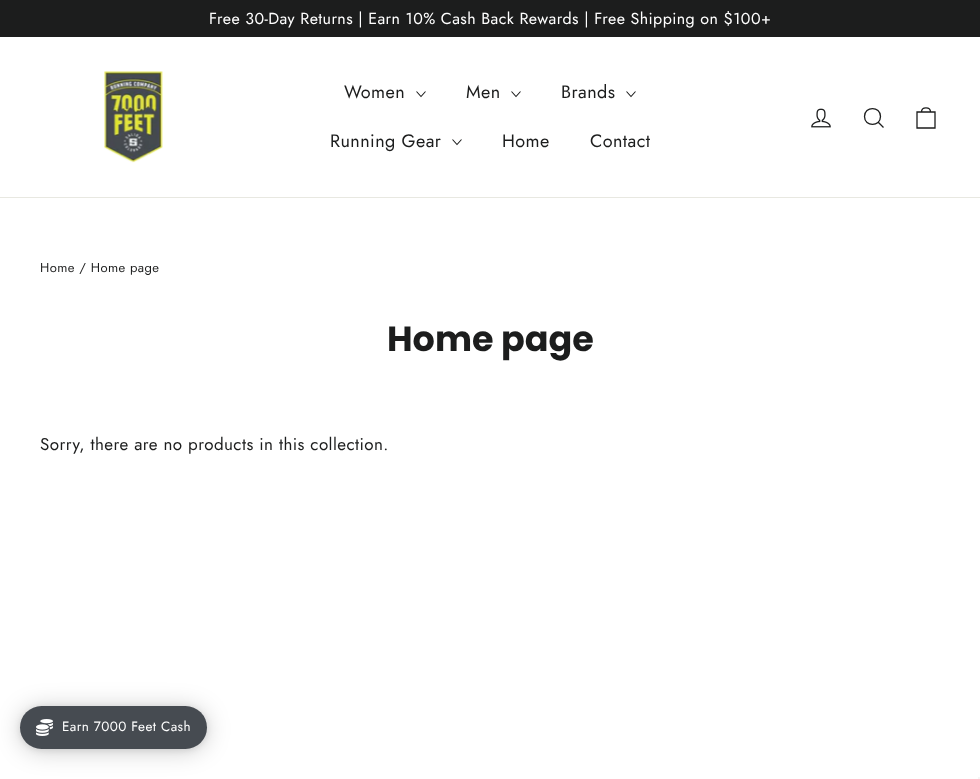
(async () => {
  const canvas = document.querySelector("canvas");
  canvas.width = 980;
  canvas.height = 779;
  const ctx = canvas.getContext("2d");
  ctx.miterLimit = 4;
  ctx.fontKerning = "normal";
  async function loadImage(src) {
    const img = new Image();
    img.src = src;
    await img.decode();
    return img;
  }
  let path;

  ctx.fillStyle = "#ffffff";
  ctx.fillRect(0, 0, 980, 779);
  ctx.fillStyle = "#1c1d1d";
  ctx.fillRect(0, 0, 980, 37);
  ctx.fillStyle = "#e8e8e1";
  ctx.fillRect(0, 197, 980, 1);
  ctx.drawImage(await loadImage("img/1.png"), 104, 71, 59, 92);
  path = new Path2D("M416.5 91.5L421 96.5L425.5 91.5");
  ctx.strokeStyle = "#1c1d1d";
  ctx.lineWidth = 1.1;
  ctx.stroke(path);
  path = new Path2D("M511.5 91.5L516 96.5L520.5 91.5");
  ctx.stroke(path);
  path = new Path2D("M626.5 91.5L631 96.5L635.5 91.5");
  ctx.stroke(path);
  path = new Path2D("M452.5 139.5L457 144.5L461.5 139.5");
  ctx.stroke(path);
  ctx.drawImage(await loadImage("img/2.png"), 811, 108, 20, 20);
  path = new Path2D("M880.5 116.5C880.5 127 864.5 127 864.5 116.5C864.5 106 880.5 106 880.5 116.5ZM883.5 127.5L878.5 122.5");
  ctx.lineWidth = 1.3;
  ctx.stroke(path);
  path = new Path2D("M917 112H935V128H917ZM921.5 112C921.5 106.5 930.5 106.5 930.5 112");
  ctx.stroke(path);
  ctx.fillStyle = "rgba(0, 0, 0, 0.2)";
  ctx.filter = "blur(12px)";
  ctx.beginPath();
  ctx.roundRect(20, 708, 187, 43, 21.5);
  ctx.fill();
  ctx.filter = "none";
  ctx.fillStyle = "rgba(0, 0, 0, 0.1)";
  ctx.filter = "blur(3px)";
  ctx.beginPath();
  ctx.roundRect(20, 707, 187, 43, 21.5);
  ctx.fill();
  ctx.filter = "none";
  ctx.fillStyle = "#464b51";
  ctx.beginPath();
  ctx.roundRect(20, 706, 187, 43, 21.5);
  ctx.fill();
  ctx.drawImage(await loadImage("img/3.png"), 36, 719, 17, 17);
  ctx.fillStyle = "#f5f5f5";
  ctx.fillRect(978, 777, 2, 2);
  ctx.letterSpacing = "0.42px";
  ctx.font = "16px Jost";
  ctx.fillStyle = "#ffffff";
  ctx.fillText("Free 30-Day Returns | Earn 10% Cash Back Rewards | Free Shipping on $100+", 209, 24);
  ctx.font = "18px Jost";
  ctx.fillStyle = "#1c1d1d";
  for (const [text, x, y] of [
    ["Women", 344, 98],
    ["Men", 466, 98],
    ["Brands", 561, 98],
    ["Running Gear", 330, 147],
    ["Home", 502, 147],
    ["Contact", 590, 147],
  ]) {
    ctx.fillText(text, x, y);
  }
  ctx.font = "13px Jost";
  ctx.fillText("Home / Home page", 40, 272);
  ctx.letterSpacing = "0px";
  ctx.font = "bold 35px Poppins";
  ctx.fillText("Home page", 387, 351);
  ctx.letterSpacing = "0.42px";
  ctx.font = "17px Jost";
  ctx.fillText("Sorry, there are no products in this collection.", 40, 450);
  ctx.font = "13.5px Jost";
  ctx.fillStyle = "#ffffff";
  ctx.fillText("Earn 7000 Feet Cash", 62, 731);
})();
